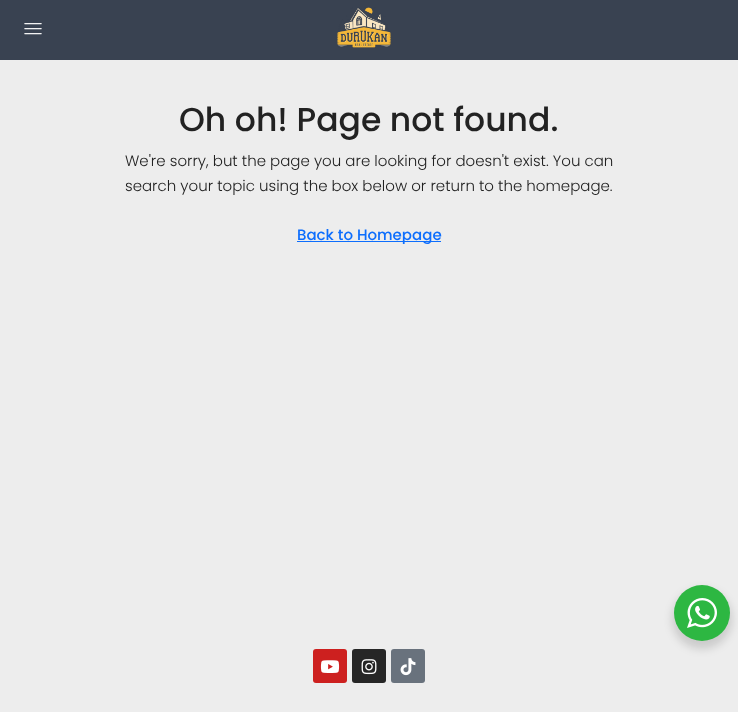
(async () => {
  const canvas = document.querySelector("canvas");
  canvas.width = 738;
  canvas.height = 712;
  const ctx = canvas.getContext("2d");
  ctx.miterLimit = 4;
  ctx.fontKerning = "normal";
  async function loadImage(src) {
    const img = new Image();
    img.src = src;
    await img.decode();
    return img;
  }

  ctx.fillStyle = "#ededed";
  ctx.fillRect(0, 0, 738, 712);
  ctx.fillStyle = "#394251";
  ctx.fillRect(0, 0, 738, 60);
  ctx.drawImage(await loadImage("img/1.png"), 24, 23, 18, 12);
  ctx.drawImage(await loadImage("img/2.png"), 337, 7, 54, 41);
  ctx.fillStyle = "#0d6efd";
  ctx.fillRect(297, 241, 144, 1);
  ctx.fillStyle = "rgba(0, 0, 0, 0.14)";
  ctx.filter = "blur(4px)";
  ctx.beginPath();
  ctx.roundRect(672, 589, 60, 60, 30);
  ctx.fill();
  ctx.filter = "none";
  ctx.fillStyle = "#2db742";
  ctx.beginPath();
  ctx.arc(702, 613, 28, 0, Math.PI * 2);
  ctx.fill();
  ctx.drawImage(await loadImage("img/3.png"), 687, 598, 30, 30);
  ctx.fillStyle = "#cd201f";
  ctx.beginPath();
  ctx.roundRect(313, 649, 34, 34, 3);
  ctx.fill();
  ctx.drawImage(await loadImage("img/4.png"), 320, 660, 20, 13);
  ctx.fillStyle = "#262626";
  ctx.beginPath();
  ctx.roundRect(352, 649, 34, 34, 3);
  ctx.fill();
  ctx.drawImage(await loadImage("img/5.png"), 361, 659, 16, 16);
  ctx.fillStyle = "#69727d";
  ctx.beginPath();
  ctx.roundRect(391, 649, 34, 34, 3);
  ctx.fill();
  ctx.drawImage(await loadImage("img/6.png"), 400, 658, 16, 18);
  ctx.font = "500 33px Poppins";
  ctx.fillStyle = "#222222";
  ctx.fillText("Oh oh! Page not found.", 179, 131);
  ctx.font = "300 15px Poppins";
  ctx.fillText("We're sorry, but the page you are looking for doesn't exist. You can", 125, 166);
  ctx.fillText("search your topic using the box below or return to the homepage.", 125, 191);
  ctx.font = "500 15px Poppins";
  ctx.fillStyle = "#0d6efd";
  ctx.fillText("Back to Homepage", 297, 240);
})();
